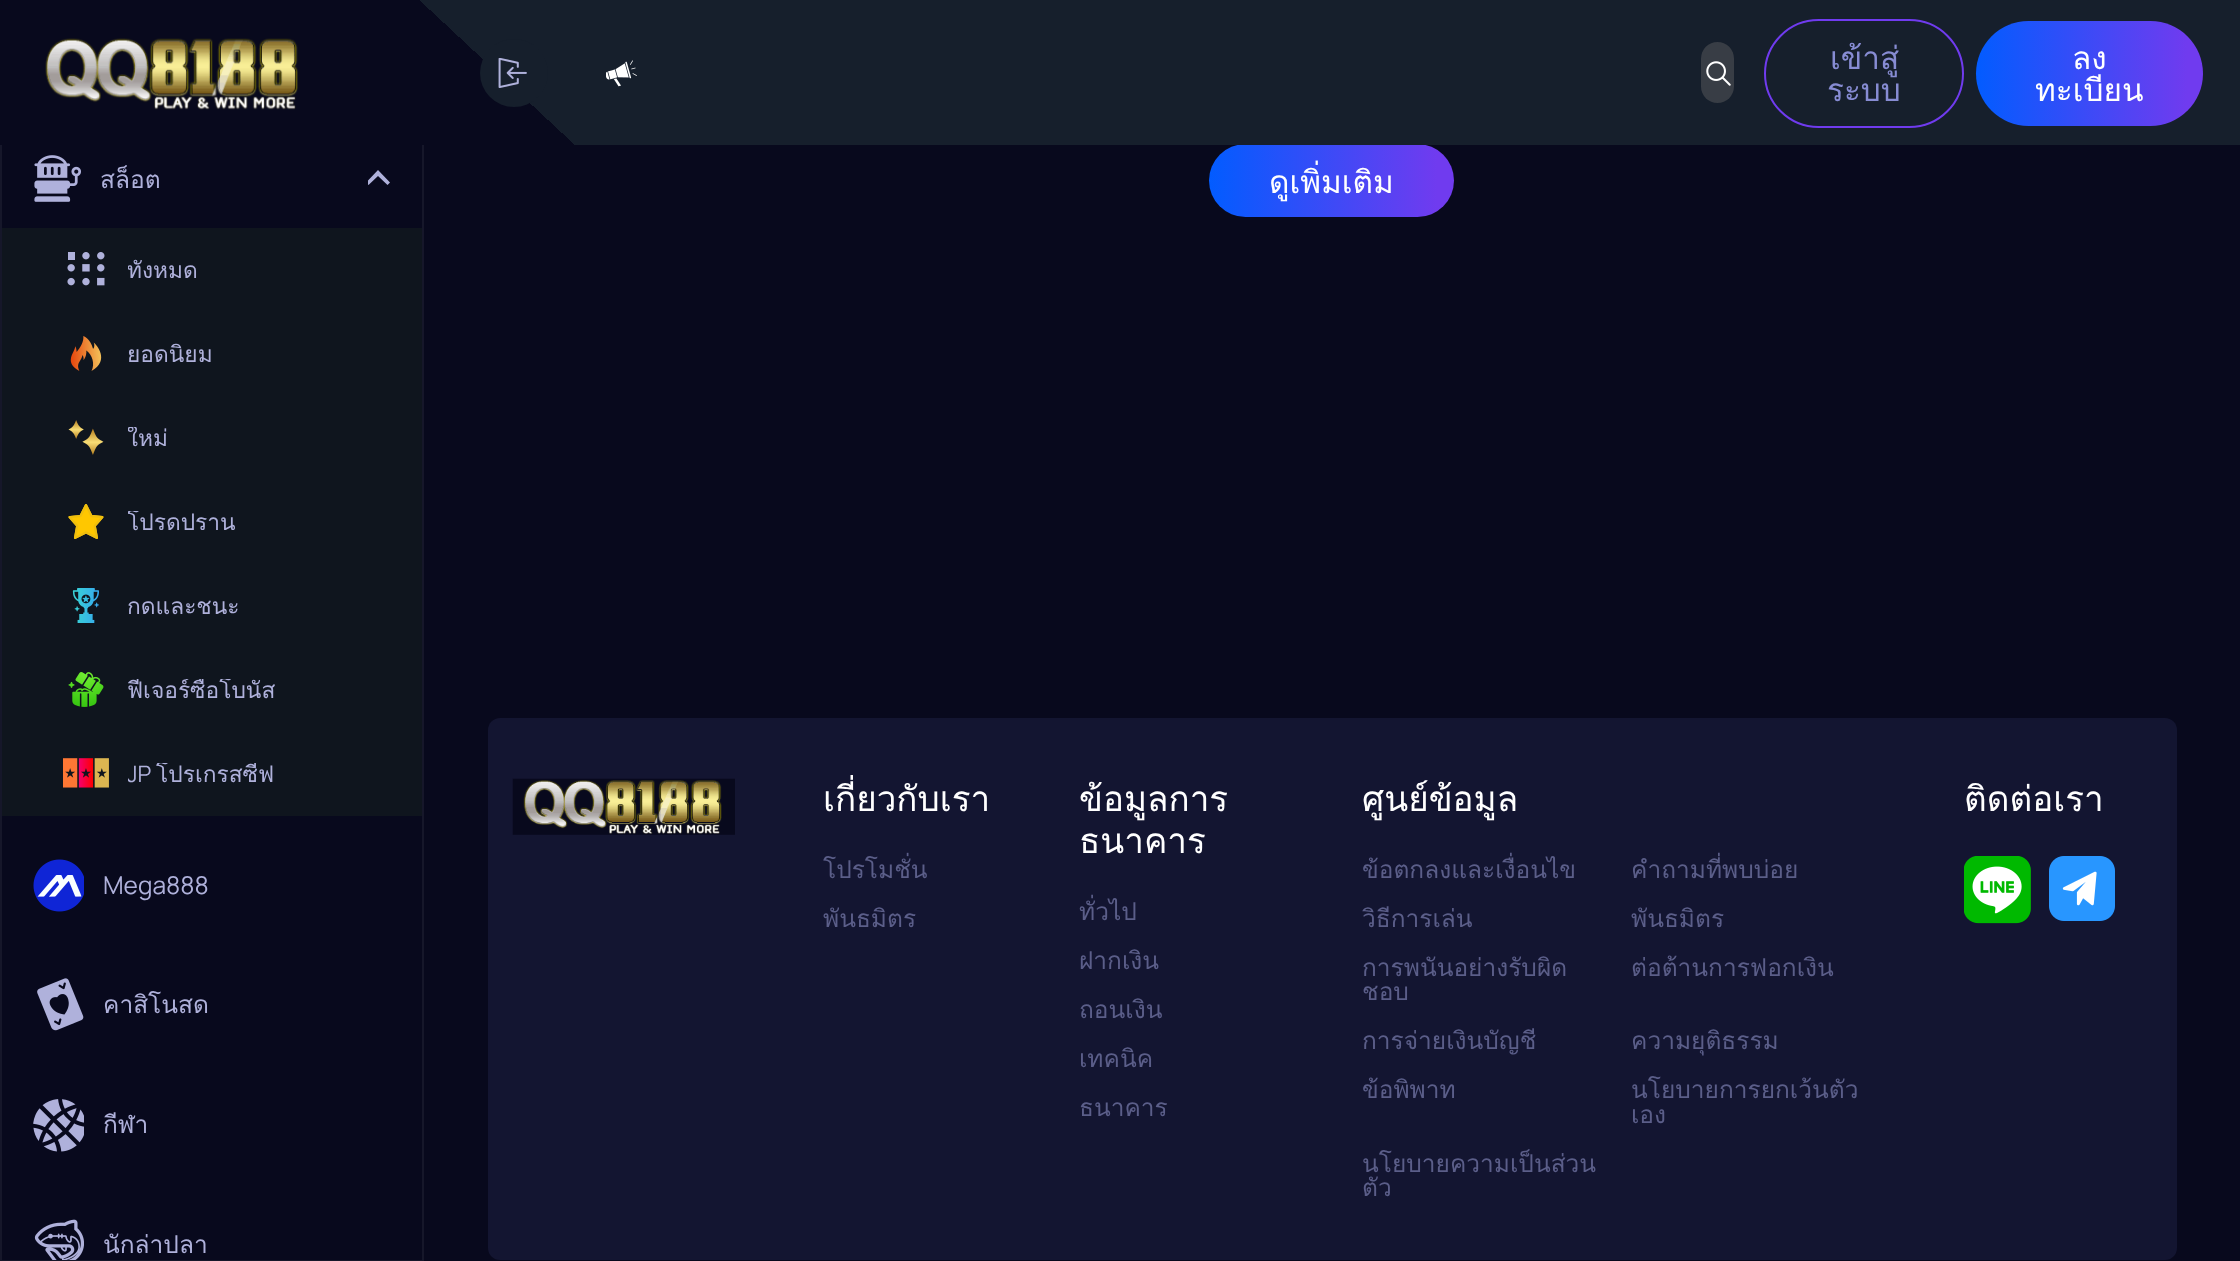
(async () => {
  const canvas = document.querySelector("canvas");
  canvas.width = 2240;
  canvas.height = 1261;
  const ctx = canvas.getContext("2d");
  ctx.miterLimit = 4;
  ctx.fontKerning = "normal";
  async function loadImage(src) {
    const img = new Image();
    img.src = src;
    await img.decode();
    return img;
  }
  let gradient, path;

  ctx.fillStyle = "#08091d";
  ctx.fillRect(0, 0, 2240, 1261);
  ctx.strokeStyle = "#16172a";
  ctx.lineWidth = 2;
  ctx.strokeRect(1, 1, 422, 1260);
  gradient = ctx.createLinearGradient(1454, 180, 1209, 181);
  gradient.addColorStop(0, "#703bef");
  gradient.addColorStop(0.07, "#703bef");
  gradient.addColorStop(1, "#025cff");
  ctx.fillStyle = gradient;
  ctx.beginPath();
  ctx.roundRect(1209, 144, 245, 73, 36.5);
  ctx.fill();
  gradient = ctx.createLinearGradient(563, 670, 1677, -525);
  gradient.addColorStop(0.24, "#08091d");
  gradient.addColorStop(0.24, "#161f2c");
  ctx.fillStyle = gradient;
  ctx.fillRect(0, 0, 2240, 145);
  ctx.drawImage(await loadImage("img/1.png"), 45, 38, 253, 72);
  ctx.fillStyle = "#161f2c";
  ctx.beginPath();
  ctx.arc(514, 73, 34, 0, Math.PI * 2);
  ctx.fill();
  ctx.drawImage(await loadImage("img/2.png"), 498, 58, 29, 30);
  ctx.drawImage(await loadImage("img/3.png"), 606, 60, 31, 27);
  ctx.fillStyle = "#383d45";
  ctx.beginPath();
  ctx.roundRect(1701, 42, 33, 61, 16.5);
  ctx.fill();
  ctx.drawImage(await loadImage("img/4.png"), 1706, 61, 25, 25);
  ctx.beginPath();
  ctx.roundRect(1765, 20, 198, 107, 53.5);
  ctx.strokeStyle = "#703bef";
  ctx.stroke();
  gradient = ctx.createLinearGradient(2203, 73, 1976, 74);
  gradient.addColorStop(0, "#703bef");
  gradient.addColorStop(0.07, "#703bef");
  gradient.addColorStop(1, "#025cff");
  ctx.fillStyle = gradient;
  ctx.beginPath();
  ctx.roundRect(1976, 21, 227, 105, 52.5);
  ctx.fill();
  ctx.drawImage(await loadImage("img/5.png"), 34, 155, 47, 47);
  ctx.save();
  ctx.beginPath();
  ctx.rect(368, 166, 24, 25);
  ctx.clip();
  ctx.fillStyle = "#afb1db";
  path = new Path2D("M387.5 185L378 176L368.5 185L366 182.5L378 170L390 182.5Z");
  ctx.fill(path);
  ctx.restore();
  ctx.fillStyle = "#0f151e";
  ctx.fillRect(2, 228, 420, 588);
  ctx.drawImage(await loadImage("img/6.png"), 67, 252, 38, 34);
  ctx.drawImage(await loadImage("img/7.png"), 70, 336, 32, 35);
  ctx.drawImage(await loadImage("img/8.png"), 68, 420, 36, 35);
  ctx.drawImage(await loadImage("img/9.png"), 68, 504, 36, 35);
  ctx.drawImage(await loadImage("img/10.png"), 72, 588, 27, 35);
  ctx.drawImage(await loadImage("img/11.png"), 68, 672, 36, 35);
  ctx.drawImage(await loadImage("img/12.png"), 63, 758, 46, 30);
  ctx.drawImage(await loadImage("img/13.png"), 33, 859, 51, 53);
  ctx.drawImage(await loadImage("img/14.png"), 37, 978, 47, 53);
  ctx.drawImage(await loadImage("img/15.png"), 33, 1099, 51, 53);
  ctx.drawImage(await loadImage("img/16.png"), 34, 1219, 50, 41);
  ctx.fillStyle = "#131531";
  ctx.beginPath();
  ctx.roundRect(488, 718, 1689, 542, 12);
  ctx.fill();
  ctx.drawImage(await loadImage("img/17.png"), 512, 778, 223, 57);
  ctx.drawImage(await loadImage("img/18.png"), 1964, 856, 67, 68);
  ctx.drawImage(await loadImage("img/19.png"), 2049, 856, 66, 65);
  ctx.font = "31.5px Loma";
  ctx.fillStyle = "#878cd3";
  ctx.fillText("เข้าสู่", 1830, 69);
  ctx.fillText("ระบบ", 1827, 101);
  ctx.fillStyle = "#ffffff";
  ctx.fillText("ลง", 2072, 69);
  ctx.fillText("ทะเบียน", 2035, 101);
  ctx.font = "24.5px Loma";
  ctx.fillStyle = "#afb1db";
  ctx.fillText("สล็อต", 100, 188);
  ctx.save();
  ctx.beginPath();
  ctx.rect(128, 259, 264, 23);
  ctx.clip();
  ctx.font = "22.75px Loma";
  ctx.fillText("ทั้งหมด", 127, 278);
  ctx.restore();
  ctx.font = "22.75px Loma";
  ctx.fillText("ยอดนิยม", 127, 362);
  ctx.save();
  ctx.beginPath();
  ctx.rect(128, 427, 264, 23);
  ctx.clip();
  ctx.fillText("ใหม่", 127, 446);
  ctx.restore();
  ctx.save();
  ctx.beginPath();
  ctx.rect(128, 511, 264, 23);
  ctx.clip();
  ctx.fillText("โปรดปราน", 127, 530);
  ctx.restore();
  ctx.fillText("กดและชนะ", 127, 614);
  ctx.save();
  ctx.beginPath();
  ctx.rect(128, 679, 264, 23);
  ctx.clip();
  ctx.fillText("ฟีเจอร์ซื้อโบนัส", 127, 698);
  ctx.restore();
  ctx.save();
  ctx.beginPath();
  ctx.rect(128, 763, 264, 23);
  ctx.clip();
  ctx.font = "22.75px Manrope";
  ctx.fillText("JP", 127, 782);
  ctx.font = "22.75px Loma";
  ctx.fillText("โปรเกรสซีฟ", 156, 782);
  ctx.restore();
  ctx.font = "24.5px Manrope";
  ctx.fillText("Mega888", 103, 894);
  ctx.font = "24.5px Loma";
  for (const [text, x, y] of [
    ["คาสิโนสด", 103, 1013],
    ["กีฬา", 103, 1133],
    ["นักล่าปลา", 103, 1253],
  ]) {
    ctx.fillText(text, x, y);
  }
  ctx.font = "31.5px Loma";
  ctx.fillStyle = "#ffffff";
  ctx.fillText("ดูเพิ่มเติม", 1269, 193);
  ctx.font = "35px Loma";
  ctx.fillText("เกี่ยวกับเรา", 823, 811);
  ctx.font = "24.5px Loma";
  ctx.fillStyle = "#5b5e89";
  ctx.fillText("โปรโมชั่น", 823, 878);
  ctx.fillText("พันธมิตร", 823, 927);
  ctx.font = "35px Loma";
  ctx.fillStyle = "#ffffff";
  ctx.fillText("ข้อมูลการ", 1079, 811);
  ctx.fillText("ธนาคาร", 1079, 853);
  ctx.font = "24.5px Loma";
  ctx.fillStyle = "#5b5e89";
  for (const [text, x, y] of [
    ["ทั่วไป", 1079, 920],
    ["ฝากเงิน", 1079, 969],
    ["ถอนเงิน", 1079, 1018],
    ["เทคนิค", 1079, 1067],
    ["ธนาคาร", 1079, 1116],
  ]) {
    ctx.fillText(text, x, y);
  }
  ctx.font = "35px Loma";
  ctx.fillStyle = "#ffffff";
  ctx.fillText("ศูนย์ข้อมูล", 1362, 811);
  ctx.font = "24.5px Loma";
  ctx.fillStyle = "#5b5e89";
  for (const [text, x, y] of [
    ["ข้อตกลงและเงื่อนไข", 1362, 878],
    ["คำถามที่พบบ่อย", 1631, 878],
    ["วิธีการเล่น", 1362, 927],
    ["พันธมิตร", 1631, 927],
    ["การพนันอย่างรับผิด", 1362, 976],
    ["ชอบ", 1362, 1000],
    ["ต่อต้านการฟอกเงิน", 1631, 976],
    ["การจ่ายเงินบัญชี", 1362, 1049],
    ["ความยุติธรรม", 1631, 1049],
    ["ข้อพิพาท", 1362, 1098],
    ["นโยบายการยกเว้นตัว", 1631, 1098],
    ["เอง", 1631, 1123],
    ["นโยบายความเป็นส่วน", 1362, 1172],
    ["ตัว", 1362, 1196],
  ]) {
    ctx.fillText(text, x, y);
  }
  ctx.font = "35px Loma";
  ctx.fillStyle = "#ffffff";
  ctx.fillText("ติดต่อเรา", 1964, 811);
})();
